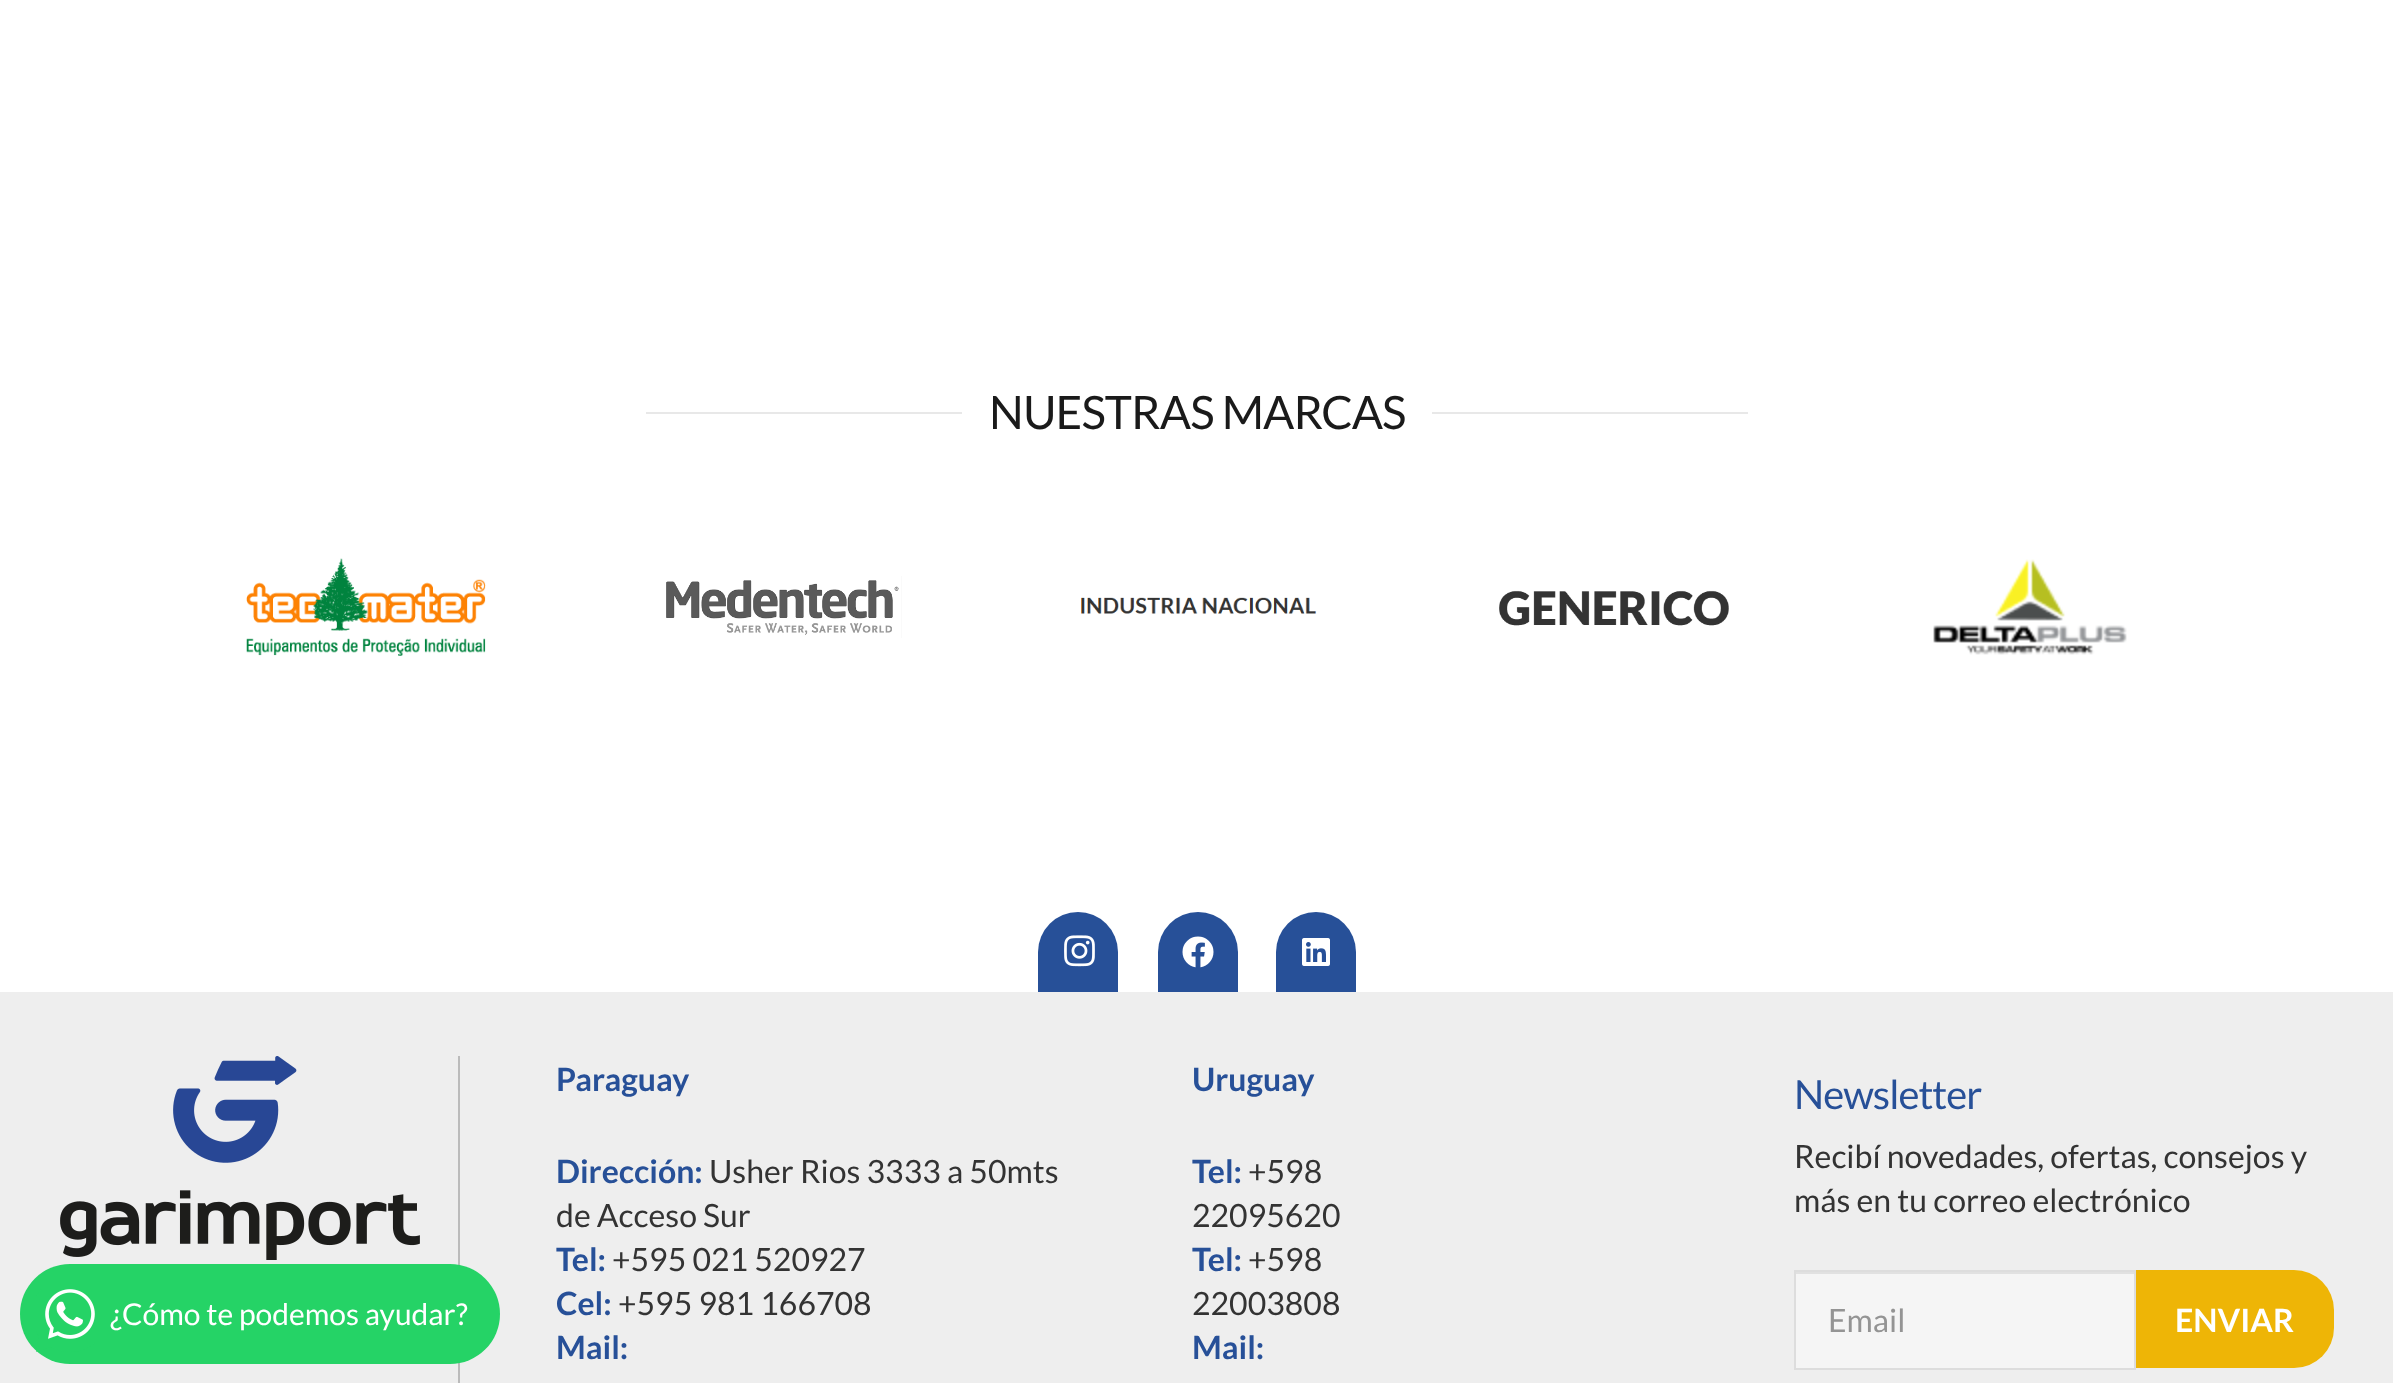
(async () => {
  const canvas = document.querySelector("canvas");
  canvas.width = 2393;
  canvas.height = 1383;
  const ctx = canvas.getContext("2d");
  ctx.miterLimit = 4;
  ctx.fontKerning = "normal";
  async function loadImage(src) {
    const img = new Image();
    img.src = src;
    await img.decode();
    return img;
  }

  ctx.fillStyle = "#ffffff";
  ctx.fillRect(0, 0, 2393, 1383);
  ctx.fillStyle = "#e8e8e8";
  ctx.fillRect(646, 412, 316, 2);
  ctx.fillRect(1432, 412, 316, 2);
  ctx.drawImage(await loadImage("img/1.png"), 246, 558, 240, 98);
  ctx.drawImage(await loadImage("img/2.png"), 666, 576, 236, 62);
  ctx.drawImage(await loadImage("img/3.png"), 1081, 597, 236, 17);
  ctx.drawImage(await loadImage("img/4.png"), 1499, 590, 230, 36);
  ctx.drawImage(await loadImage("img/5.png"), 1933, 559, 194, 96);
  ctx.fillStyle = "#275098";
  ctx.beginPath();
  ctx.roundRect(1038, 912, 80, 80, [40, 40, 0, 0]);
  ctx.fill();
  ctx.drawImage(await loadImage("img/6.png"), 1064, 935, 31, 32);
  ctx.beginPath();
  ctx.roundRect(1158, 912, 80, 80, [40, 40, 0, 0]);
  ctx.fill();
  ctx.drawImage(await loadImage("img/7.png"), 1182, 936, 32, 32);
  ctx.beginPath();
  ctx.roundRect(1276, 912, 80, 80, [40, 40, 0, 0]);
  ctx.fill();
  ctx.drawImage(await loadImage("img/8.png"), 1302, 938, 28, 28);
  ctx.fillStyle = "#eeeeee";
  ctx.fillRect(0, 992, 2393, 391);
  ctx.fillStyle = "#bbbbbb";
  ctx.fillRect(458, 1056, 2, 327);
  ctx.fillStyle = "#25d366";
  ctx.beginPath();
  ctx.roundRect(20, 1264, 480, 100, 50);
  ctx.fill();
  ctx.drawImage(await loadImage("img/9.png"), 36, 1289, 59, 63);
  ctx.drawImage(await loadImage("img/10.png"), 60, 1056, 360, 204);
  ctx.fillStyle = "#f5f5f5";
  ctx.fillRect(1796, 1274, 338, 94);
  ctx.fillStyle = "#e1e1e1";
  ctx.fillRect(1796, 1272, 338, 2);
  ctx.strokeStyle = "#dddddd";
  ctx.lineWidth = 2;
  ctx.strokeRect(1795, 1271, 340, 98);
  ctx.fillStyle = "#eeb506";
  ctx.beginPath();
  ctx.roundRect(2136, 1270, 198, 98, [0, 40, 40, 0]);
  ctx.fill();
  ctx.letterSpacing = "-0.9px";
  ctx.font = "46px Lato";
  ctx.fillStyle = "#1a1a1a";
  ctx.fillText("NUESTRAS MARCAS", 989, 429);
  ctx.letterSpacing = "0px";
  ctx.font = "30px Lato";
  ctx.fillStyle = "#ffffff";
  ctx.fillText("¿Cómo te podemos ayudar?", 110, 1325);
  ctx.font = "bold 32px Lato";
  ctx.fillStyle = "#275098";
  ctx.fillText("Paraguay", 556, 1091);
  ctx.fillText("Dirección:", 556, 1183);
  ctx.font = "32px Lato";
  ctx.fillStyle = "#333333";
  ctx.fillText("Usher Rios 3333 a 50mts", 709, 1183);
  ctx.fillText("de Acceso Sur", 556, 1227);
  ctx.font = "bold 32px Lato";
  ctx.fillStyle = "#275098";
  ctx.fillText("Tel:", 556, 1271);
  ctx.font = "32px Lato";
  ctx.fillStyle = "#333333";
  ctx.fillText("+595 021 520927", 612, 1271);
  ctx.font = "bold 32px Lato";
  ctx.fillStyle = "#275098";
  ctx.fillText("Cel:", 556, 1315);
  ctx.font = "32px Lato";
  ctx.fillStyle = "#333333";
  ctx.fillText("+595 981 166708", 618, 1315);
  ctx.font = "bold 32px Lato";
  ctx.fillStyle = "#275098";
  for (const [text, x, y] of [
    ["Mail:", 556, 1359],
    ["Uruguay", 1192, 1091],
    ["Tel:", 1192, 1183],
  ]) {
    ctx.fillText(text, x, y);
  }
  ctx.font = "32px Lato";
  ctx.fillStyle = "#333333";
  ctx.fillText("+598", 1248, 1183);
  ctx.fillText("22095620", 1192, 1227);
  ctx.font = "bold 32px Lato";
  ctx.fillStyle = "#275098";
  ctx.fillText("Tel:", 1192, 1271);
  ctx.font = "32px Lato";
  ctx.fillStyle = "#333333";
  ctx.fillText("+598", 1248, 1271);
  ctx.fillText("22003808", 1192, 1315);
  ctx.font = "bold 32px Lato";
  ctx.fillStyle = "#275098";
  ctx.fillText("Mail:", 1192, 1359);
  ctx.letterSpacing = "-1px";
  ctx.font = "40px Lato";
  ctx.fillText("Newsletter", 1794, 1109);
  ctx.letterSpacing = "0px";
  ctx.font = "32px Lato";
  ctx.fillStyle = "#333333";
  ctx.fillText("Recibí novedades, ofertas, consejos y", 1794, 1168);
  ctx.fillText("más en tu correo electrónico", 1794, 1212);
  ctx.fillStyle = "#949494";
  ctx.fillText("Email", 1828, 1332);
  ctx.font = "bold 32px Lato";
  ctx.fillStyle = "#ffffff";
  ctx.fillText("ENVIAR", 2175, 1332);
})();
